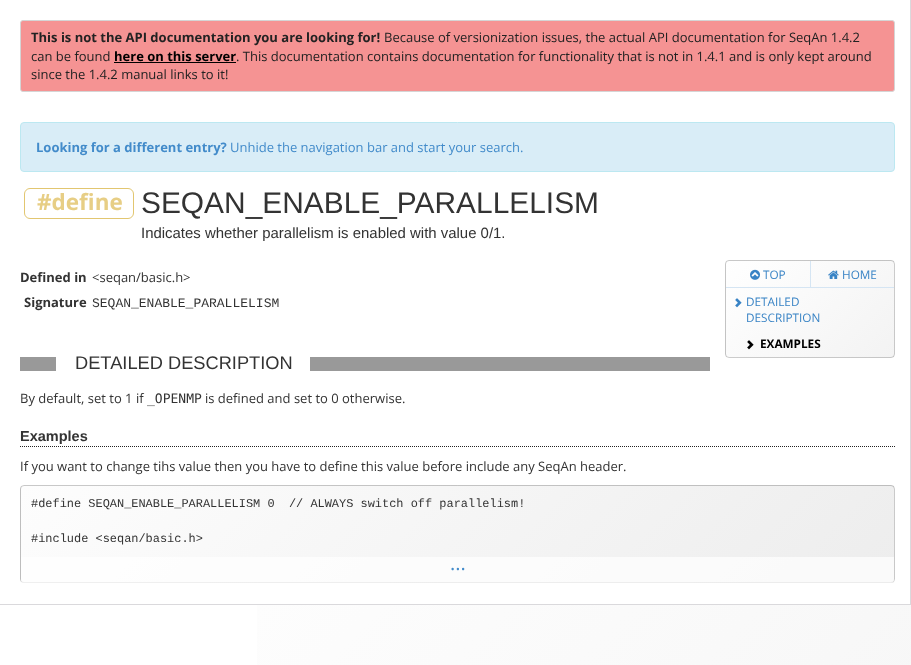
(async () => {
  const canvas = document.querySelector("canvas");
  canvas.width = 911;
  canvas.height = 665;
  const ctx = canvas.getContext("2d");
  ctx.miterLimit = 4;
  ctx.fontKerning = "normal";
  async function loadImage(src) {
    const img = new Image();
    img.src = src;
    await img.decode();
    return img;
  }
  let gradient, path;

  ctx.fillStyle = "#ffffff";
  ctx.fillRect(0, 0, 911, 665);
  gradient = ctx.createLinearGradient(76, 529, 835, 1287);
  gradient.addColorStop(0, "#ffffff");
  gradient.addColorStop(1, "#f3f3f3");
  ctx.fillStyle = gradient;
  ctx.fillRect(257, 605, 654, 60);
  ctx.fillStyle = "#dad9dc";
  ctx.fillRect(910, 0, 1, 605);
  ctx.fillRect(0, 604, 911, 1);
  ctx.fillStyle = "#f59393";
  ctx.beginPath();
  ctx.roundRect(20.5, 20.5, 874, 71, 2.5);
  ctx.fill();
  ctx.strokeStyle = "#d5d5d5";
  ctx.stroke();
  ctx.fillStyle = "#000000";
  ctx.fillRect(114, 62, 122, 1);
  ctx.fillStyle = "#d9edf7";
  ctx.beginPath();
  ctx.roundRect(20.5, 122.5, 874, 49, 3.5);
  ctx.fill();
  ctx.strokeStyle = "#bce8f1";
  ctx.stroke();
  ctx.beginPath();
  ctx.roundRect(24.5, 188.5, 109, 30, 5.5);
  ctx.strokeStyle = "#e2c670";
  ctx.stroke();
  ctx.save();
  ctx.beginPath();
  ctx.roundRect(725, 260, 170, 98, 4);
  ctx.clip();
  gradient = ctx.createLinearGradient(744, 147, 876, 279);
  gradient.addColorStop(0, "#ffffff");
  gradient.addColorStop(1, "#f3f3f3");
  ctx.fillStyle = gradient;
  ctx.fillRect(726, 260, 168, 1);
  gradient = ctx.createLinearGradient(576, 243, 708, 375);
  gradient.addColorStop(0, "#ffffff");
  gradient.addColorStop(1, "#f3f3f3");
  ctx.fillStyle = gradient;
  ctx.fillRect(725, 261, 1, 96);
  gradient = ctx.createLinearGradient(744, 243, 876, 375);
  gradient.addColorStop(0, "#ffffff");
  gradient.addColorStop(1, "#f3f3f3");
  ctx.fillStyle = gradient;
  ctx.fillRect(726, 261, 168, 96);
  gradient = ctx.createLinearGradient(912, 243, 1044, 375);
  gradient.addColorStop(0, "#ffffff");
  gradient.addColorStop(1, "#f3f3f3");
  ctx.fillStyle = gradient;
  ctx.fillRect(894, 261, 1, 96);
  gradient = ctx.createLinearGradient(744, 339, 876, 471);
  gradient.addColorStop(0, "#ffffff");
  gradient.addColorStop(1, "#f3f3f3");
  ctx.fillStyle = gradient;
  ctx.fillRect(726, 357, 168, 1);
  ctx.restore();
  ctx.beginPath();
  ctx.roundRect(725.5, 260.5, 169, 97, 3.5);
  ctx.strokeStyle = "rgba(0, 0, 0, 0.2)";
  ctx.stroke();
  ctx.fillStyle = "#d5e5f3";
  ctx.fillRect(726, 287, 168, 1);
  ctx.drawImage(await loadImage("img/1.png"), 750, 269, 10, 11);
  ctx.fillRect(810, 261, 1, 26);
  ctx.drawImage(await loadImage("img/2.png"), 828, 270, 11, 9);
  ctx.drawImage(await loadImage("img/3.png"), 735, 298, 7, 10);
  ctx.drawImage(await loadImage("img/4.png"), 747, 340, 7, 10);
  ctx.fillStyle = "#999999";
  ctx.fillRect(20, 357, 36, 14);
  ctx.fillRect(310, 357, 400, 14);
  path = new Path2D("M20 446.5H895");
  ctx.strokeStyle = "#222222";
  ctx.setLineDash([1, 1]);
  ctx.stroke(path);
  ctx.save();
  ctx.beginPath();
  ctx.roundRect(20, 485, 875, 98, 4);
  ctx.clip();
  gradient = ctx.createLinearGradient(215, 196, 700, 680);
  gradient.addColorStop(0, "#fdfdfd");
  gradient.addColorStop(1, "#ededed");
  ctx.fillStyle = gradient;
  ctx.fillRect(21, 485, 873, 1);
  gradient = ctx.createLinearGradient(-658, 292, -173, 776);
  gradient.addColorStop(0, "#fdfdfd");
  gradient.addColorStop(1, "#ededed");
  ctx.fillStyle = gradient;
  ctx.fillRect(20, 486, 1, 96);
  gradient = ctx.createLinearGradient(215, 292, 700, 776);
  gradient.addColorStop(0, "#fdfdfd");
  gradient.addColorStop(1, "#ededed");
  ctx.fillStyle = gradient;
  ctx.fillRect(21, 486, 873, 96);
  gradient = ctx.createLinearGradient(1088, 292, 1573, 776);
  gradient.addColorStop(0, "#fdfdfd");
  gradient.addColorStop(1, "#ededed");
  ctx.fillStyle = gradient;
  ctx.fillRect(894, 486, 1, 96);
  gradient = ctx.createLinearGradient(215, 388, 700, 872);
  gradient.addColorStop(0, "#fdfdfd");
  gradient.addColorStop(1, "#ededed");
  ctx.fillStyle = gradient;
  ctx.fillRect(21, 582, 873, 1);
  ctx.restore();
  ctx.beginPath();
  ctx.roundRect(20.5, 485.5, 874, 97, 3.5);
  ctx.strokeStyle = "rgba(0, 0, 0, 0.2)";
  ctx.setLineDash([]);
  ctx.stroke();
  ctx.fillStyle = "rgba(255, 255, 255, 0.7)";
  ctx.beginPath();
  ctx.roundRect(21, 557, 873, 26, [0, 0, 3, 3]);
  ctx.fill();
  ctx.font = "bold 13px Open Sans";
  ctx.fillStyle = "#222222";
  ctx.fillText("This is not the API documentation you are looking for!", 31, 42);
  ctx.font = "13px Open Sans";
  ctx.fillText("Because of versionization issues, the actual API documentation for SeqAn 1.4.2", 384, 42);
  ctx.fillText("can be found", 31, 61);
  ctx.font = "bold 13px Open Sans";
  ctx.fillStyle = "#000000";
  ctx.fillText("here on this server", 114, 61);
  ctx.font = "13px Open Sans";
  ctx.fillStyle = "#222222";
  ctx.fillText(". This documentation contains documentation for functionality that is not in 1.4.1 and is only kept around", 236, 61);
  ctx.fillText("since the 1.4.2 manual links to it!", 31, 79);
  ctx.font = "bold 13px Open Sans";
  ctx.fillStyle = "#428bca";
  ctx.fillText("Looking for a different entry?", 36, 152);
  ctx.font = "13px Open Sans";
  ctx.fillText("Unhide the navigation bar and start your search.", 230, 152);
  ctx.font = "bold 22.5px Open Sans";
  ctx.fillStyle = "#e7ce85";
  ctx.fillText("#define", 37, 210);
  ctx.font = "29.9px Liberation Sans";
  ctx.fillStyle = "#333333";
  ctx.fillText("SEQAN_ENABLE_PARALLELISM", 141, 213);
  ctx.font = "14.95px Liberation Sans";
  ctx.fillText("Indicates whether parallelism is enabled with value 0/1.", 141, 238);
  ctx.font = "bold 13px Open Sans";
  ctx.fillText("Defined in", 20, 282);
  ctx.font = "13px Open Sans";
  ctx.fillText("<seqan/basic.h>", 92, 282);
  ctx.font = "bold 13px Open Sans";
  ctx.fillText("Signature", 24, 307);
  ctx.font = "13px Liberation Mono";
  ctx.fillText("SEQAN_ENABLE_PARALLELISM", 92, 307);
  ctx.font = "11.75px Open Sans";
  ctx.fillStyle = "#3883c5";
  for (const [text, x, y] of [
    ["TOP", 763, 279],
    ["HOME", 842, 279],
    ["DETAILED", 746, 306],
    ["DESCRIPTION", 746, 322],
  ]) {
    ctx.fillText(text, x, y);
  }
  ctx.font = "bold 11.75px Open Sans";
  ctx.fillStyle = "#000000";
  ctx.fillText("EXAMPLES", 760, 348);
  ctx.font = "18.25px Liberation Sans";
  ctx.fillStyle = "#333333";
  ctx.fillText("DETAILED DESCRIPTION", 75, 369);
  ctx.font = "13px Open Sans";
  ctx.fillText("By default, set to 1 if", 20, 403);
  ctx.font = "13px DejaVu Sans Mono";
  ctx.fillText("_OPENMP", 147, 403);
  ctx.font = "13px Open Sans";
  ctx.fillText("is defined and set to 0 otherwise.", 205, 403);
  ctx.font = "bold 14.5px Liberation Sans";
  ctx.fillText("Examples", 20, 441);
  ctx.font = "13px Open Sans";
  ctx.fillText("If you want to change tihs value then you have to define this value before include any SeqAn header.", 20, 471);
  ctx.font = "11.95px Liberation Mono";
  ctx.fillText("#define SEQAN_ENABLE_PARALLELISM 0  // ALWAYS switch off parallelism!", 31, 507);
  ctx.fillText("#include <seqan/basic.h>", 31, 542);
  ctx.font = "20px Open Sans";
  ctx.fillStyle = "#428bca";
  ctx.fillText("...", 450, 570);
})();
